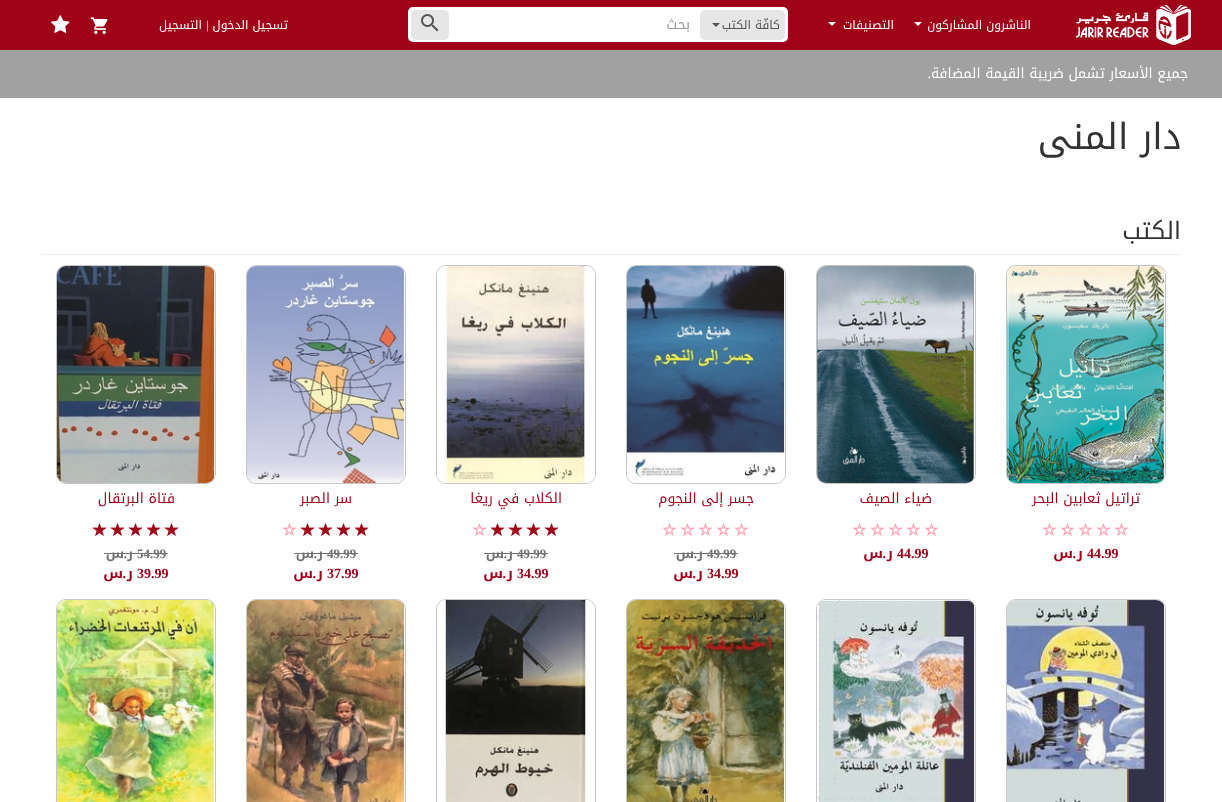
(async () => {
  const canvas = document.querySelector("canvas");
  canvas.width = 1222;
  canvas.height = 802;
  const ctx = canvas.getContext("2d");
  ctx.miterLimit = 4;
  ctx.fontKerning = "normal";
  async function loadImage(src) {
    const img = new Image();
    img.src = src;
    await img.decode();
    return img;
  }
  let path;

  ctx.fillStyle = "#ffffff";
  ctx.fillRect(0, 0, 1222, 802);
  ctx.fillStyle = "#9e0118";
  ctx.fillRect(0, 0, 1222, 50);
  ctx.drawImage(await loadImage("img/1.png"), 1076, 5, 115, 40);
  ctx.fillStyle = "#ffffff";
  path = new Path2D("M914 22H922L918 26Z");
  ctx.fill(path);
  path = new Path2D("M828 22H836L832 26Z");
  ctx.fill(path);
  ctx.beginPath();
  ctx.roundRect(408, 7, 380, 35, 5);
  ctx.fill();
  ctx.fillStyle = "#e6e6e6";
  ctx.beginPath();
  ctx.roundRect(700, 10, 85, 30, 5);
  ctx.fill();
  ctx.fillStyle = "#555555";
  path = new Path2D("M712 23H720L716 27Z");
  ctx.fill(path);
  ctx.fillStyle = "#e6e6e6";
  ctx.beginPath();
  ctx.roundRect(411, 10, 38, 30, 5);
  ctx.fill();
  ctx.drawImage(await loadImage("img/2.png"), 421, 14, 18, 18);
  ctx.drawImage(await loadImage("img/3.png"), 90, 17, 18, 17);
  ctx.drawImage(await loadImage("img/4.png"), 51, 15, 19, 18);
  ctx.fillStyle = "#a1a1a1";
  ctx.fillRect(0, 50, 1222, 48);
  ctx.fillStyle = "#eeeeee";
  ctx.fillRect(41, 254, 1140, 1);
  ctx.beginPath();
  ctx.roundRect(1006.5, 265.5, 159, 218, 9.5);
  ctx.strokeStyle = "#c6c6c6";
  ctx.stroke();
  ctx.drawImage(await loadImage("img/5.png"), 1007, 266, 158, 217);
  ctx.drawImage(await loadImage("img/6.png"), 1114, 523, 15, 13);
  ctx.drawImage(await loadImage("img/6.png"), 1096, 523, 15, 13);
  ctx.drawImage(await loadImage("img/6.png"), 1078, 523, 15, 13);
  ctx.drawImage(await loadImage("img/6.png"), 1060, 523, 15, 13);
  ctx.drawImage(await loadImage("img/6.png"), 1042, 523, 15, 13);
  ctx.beginPath();
  ctx.roundRect(816.5, 265.5, 159, 218, 9.5);
  ctx.stroke();
  ctx.drawImage(await loadImage("img/7.png"), 817, 266, 158, 217);
  ctx.drawImage(await loadImage("img/6.png"), 924, 523, 15, 13);
  ctx.drawImage(await loadImage("img/6.png"), 906, 523, 15, 13);
  ctx.drawImage(await loadImage("img/6.png"), 888, 523, 15, 13);
  ctx.drawImage(await loadImage("img/6.png"), 870, 523, 15, 13);
  ctx.drawImage(await loadImage("img/6.png"), 852, 523, 15, 13);
  ctx.beginPath();
  ctx.roundRect(626.5, 265.5, 159, 218, 9.5);
  ctx.stroke();
  ctx.drawImage(await loadImage("img/8.png"), 627, 266, 158, 217);
  ctx.drawImage(await loadImage("img/6.png"), 734, 523, 15, 13);
  ctx.drawImage(await loadImage("img/6.png"), 716, 523, 15, 13);
  ctx.drawImage(await loadImage("img/6.png"), 698, 523, 15, 13);
  ctx.drawImage(await loadImage("img/6.png"), 680, 523, 15, 13);
  ctx.drawImage(await loadImage("img/6.png"), 662, 523, 15, 13);
  ctx.fillStyle = "#727272";
  ctx.fillRect(674, 553, 64, 1);
  ctx.beginPath();
  ctx.roundRect(436.5, 265.5, 159, 218, 9.5);
  ctx.stroke();
  ctx.drawImage(await loadImage("img/9.png"), 437, 266, 158, 217);
  ctx.drawImage(await loadImage("img/6.png"), 544, 523, 15, 13);
  ctx.drawImage(await loadImage("img/6.png"), 526, 523, 15, 13);
  ctx.drawImage(await loadImage("img/6.png"), 508, 523, 15, 13);
  ctx.drawImage(await loadImage("img/6.png"), 490, 523, 15, 13);
  ctx.drawImage(await loadImage("img/6.png"), 472, 523, 15, 13);
  ctx.drawImage(await loadImage("img/10.png"), 544, 523, 15, 13);
  ctx.drawImage(await loadImage("img/10.png"), 526, 523, 15, 13);
  ctx.drawImage(await loadImage("img/10.png"), 508, 523, 15, 13);
  ctx.drawImage(await loadImage("img/10.png"), 490, 523, 15, 13);
  ctx.fillRect(484, 553, 64, 1);
  ctx.beginPath();
  ctx.roundRect(246.5, 265.5, 159, 218, 9.5);
  ctx.stroke();
  ctx.drawImage(await loadImage("img/11.png"), 247, 266, 158, 217);
  ctx.drawImage(await loadImage("img/6.png"), 354, 523, 15, 13);
  ctx.drawImage(await loadImage("img/6.png"), 336, 523, 15, 13);
  ctx.drawImage(await loadImage("img/6.png"), 318, 523, 15, 13);
  ctx.drawImage(await loadImage("img/6.png"), 300, 523, 15, 13);
  ctx.drawImage(await loadImage("img/6.png"), 282, 523, 15, 13);
  ctx.drawImage(await loadImage("img/10.png"), 354, 523, 15, 13);
  ctx.drawImage(await loadImage("img/10.png"), 336, 523, 15, 13);
  ctx.drawImage(await loadImage("img/10.png"), 318, 523, 15, 13);
  ctx.drawImage(await loadImage("img/10.png"), 300, 523, 15, 13);
  ctx.fillRect(294, 553, 64, 1);
  ctx.beginPath();
  ctx.roundRect(56.5, 265.5, 159, 218, 9.5);
  ctx.stroke();
  ctx.drawImage(await loadImage("img/12.png"), 57, 266, 158, 217);
  ctx.drawImage(await loadImage("img/6.png"), 164, 523, 15, 13);
  ctx.drawImage(await loadImage("img/6.png"), 146, 523, 15, 13);
  ctx.drawImage(await loadImage("img/6.png"), 128, 523, 15, 13);
  ctx.drawImage(await loadImage("img/6.png"), 110, 523, 15, 13);
  ctx.drawImage(await loadImage("img/6.png"), 92, 523, 15, 13);
  ctx.drawImage(await loadImage("img/10.png"), 164, 523, 15, 13);
  ctx.drawImage(await loadImage("img/10.png"), 146, 523, 15, 13);
  ctx.drawImage(await loadImage("img/10.png"), 128, 523, 15, 13);
  ctx.drawImage(await loadImage("img/10.png"), 110, 523, 15, 13);
  ctx.drawImage(await loadImage("img/10.png"), 92, 523, 15, 13);
  ctx.fillRect(104, 553, 64, 1);
  ctx.beginPath();
  ctx.roundRect(1006.5, 599.5, 159, 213, 9.5);
  ctx.stroke();
  ctx.drawImage(await loadImage("img/13.png"), 1007, 600, 158, 202);
  ctx.beginPath();
  ctx.roundRect(816.5, 599.5, 159, 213, 9.5);
  ctx.stroke();
  ctx.drawImage(await loadImage("img/14.png"), 817, 600, 158, 202);
  ctx.beginPath();
  ctx.roundRect(626.5, 599.5, 159, 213, 9.5);
  ctx.stroke();
  ctx.drawImage(await loadImage("img/15.png"), 627, 600, 158, 202);
  ctx.beginPath();
  ctx.roundRect(436.5, 599.5, 159, 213, 9.5);
  ctx.stroke();
  ctx.drawImage(await loadImage("img/16.png"), 437, 600, 158, 202);
  ctx.beginPath();
  ctx.roundRect(246.5, 599.5, 159, 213, 9.5);
  ctx.stroke();
  ctx.drawImage(await loadImage("img/17.png"), 247, 600, 158, 202);
  ctx.beginPath();
  ctx.roundRect(56.5, 599.5, 159, 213, 9.5);
  ctx.stroke();
  ctx.drawImage(await loadImage("img/18.png"), 57, 600, 158, 202);
  ctx.direction = "rtl";
  ctx.font = "12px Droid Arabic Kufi";
  ctx.fillStyle = "#ffffff";
  ctx.fillText("الناشرون المشاركون", 1031, 29);
  ctx.fillText("التصنيفات", 894, 29);
  ctx.fillStyle = "#555555";
  ctx.fillText("كافّة الكتب", 780, 29);
  ctx.font = "14px Droid Arabic Kufi";
  ctx.fillStyle = "#999999";
  ctx.fillText("بحث", 690, 29);
  ctx.font = "12px Droid Arabic Kufi";
  ctx.fillStyle = "#ffffff";
  ctx.fillText("تسجيل الدخول", 288, 29);
  ctx.font = "12px Liberation Serif";
  ctx.fillText("|", 209, 29);
  ctx.font = "12px Droid Arabic Kufi";
  ctx.fillText("التسجيل", 202, 29);
  ctx.font = "14px Droid Arabic Kufi";
  ctx.fillText("جميع الأسعار تشمل ضريبة القيمة المضافة", 1188, 78);
  ctx.font = "14px Liberation Serif";
  ctx.fillText(".", 931, 78);
  ctx.font = "36px Droid Arabic Kufi";
  ctx.fillStyle = "#333333";
  ctx.fillText("دار المنى", 1181, 149);
  ctx.font = "24px Droid Arabic Kufi";
  ctx.fillText("الكتب", 1181, 239);
  ctx.font = "14px Droid Arabic Kufi";
  ctx.fillStyle = "#9e0118";
  ctx.fillText("تراتيل ثعابين البحر", 1140, 503);
  ctx.direction = "ltr";
  ctx.font = "bold 14px Liberation Serif";
  ctx.fillText("44.99", 1087, 558);
  ctx.direction = "rtl";
  ctx.fillText(".", 1076, 558);
  ctx.font = "bold 14px Droid Arabic Kufi";
  ctx.fillText("ر", 1083, 558);
  ctx.fillText("س", 1073, 558);
  ctx.font = "14px Droid Arabic Kufi";
  ctx.fillText("ضياء الصيف", 932, 503);
  ctx.direction = "ltr";
  ctx.font = "bold 14px Liberation Serif";
  ctx.fillText("44.99", 897, 558);
  ctx.direction = "rtl";
  ctx.fillText(".", 886, 558);
  ctx.font = "bold 14px Droid Arabic Kufi";
  ctx.fillText("ر", 893, 558);
  ctx.fillText("س", 883, 558);
  ctx.font = "14px Droid Arabic Kufi";
  ctx.fillText("جسر إلى النجوم", 754, 503);
  ctx.direction = "ltr";
  ctx.font = "bold 13px Liberation Serif";
  ctx.fillStyle = "#727272";
  ctx.fillText("49.99", 707, 558);
  ctx.direction = "rtl";
  ctx.font = "bold 13px Droid Arabic Kufi";
  ctx.fillText("س", 694, 558);
  ctx.font = "bold 13px Liberation Serif";
  ctx.fillText(".", 697, 558);
  ctx.font = "bold 13px Droid Arabic Kufi";
  ctx.fillText("ر", 703, 558);
  ctx.direction = "ltr";
  ctx.font = "bold 14px Liberation Serif";
  ctx.fillStyle = "#9e0118";
  ctx.fillText("34.99", 707, 578);
  ctx.direction = "rtl";
  ctx.fillText(".", 696, 578);
  ctx.font = "bold 14px Droid Arabic Kufi";
  ctx.fillText("ر", 703, 578);
  ctx.fillText("س", 693, 578);
  ctx.font = "14px Droid Arabic Kufi";
  ctx.fillText("الكلاب في ريغا", 562, 503);
  ctx.direction = "ltr";
  ctx.font = "bold 13px Liberation Serif";
  ctx.fillStyle = "#727272";
  ctx.fillText("49.99", 517, 558);
  ctx.direction = "rtl";
  ctx.font = "bold 13px Droid Arabic Kufi";
  ctx.fillText("س", 504, 558);
  ctx.font = "bold 13px Liberation Serif";
  ctx.fillText(".", 507, 558);
  ctx.font = "bold 13px Droid Arabic Kufi";
  ctx.fillText("ر", 513, 558);
  ctx.direction = "ltr";
  ctx.font = "bold 14px Liberation Serif";
  ctx.fillStyle = "#9e0118";
  ctx.fillText("34.99", 517, 578);
  ctx.direction = "rtl";
  ctx.fillText(".", 506, 578);
  ctx.font = "bold 14px Droid Arabic Kufi";
  ctx.fillText("ر", 513, 578);
  ctx.fillText("س", 503, 578);
  ctx.font = "14px Droid Arabic Kufi";
  ctx.fillText("سر الصبر", 352, 503);
  ctx.direction = "ltr";
  ctx.font = "bold 13px Liberation Serif";
  ctx.fillStyle = "#727272";
  ctx.fillText("49.99", 327, 558);
  ctx.direction = "rtl";
  ctx.font = "bold 13px Droid Arabic Kufi";
  ctx.fillText("س", 314, 558);
  ctx.font = "bold 13px Liberation Serif";
  ctx.fillText(".", 317, 558);
  ctx.font = "bold 13px Droid Arabic Kufi";
  ctx.fillText("ر", 323, 558);
  ctx.direction = "ltr";
  ctx.font = "bold 14px Liberation Serif";
  ctx.fillStyle = "#9e0118";
  ctx.fillText("37.99", 327, 578);
  ctx.direction = "rtl";
  ctx.fillText(".", 316, 578);
  ctx.font = "bold 14px Droid Arabic Kufi";
  ctx.fillText("ر", 323, 578);
  ctx.fillText("س", 313, 578);
  ctx.font = "14px Droid Arabic Kufi";
  ctx.fillText("فتاة البرتقال", 175, 503);
  ctx.direction = "ltr";
  ctx.font = "bold 13px Liberation Serif";
  ctx.fillStyle = "#727272";
  ctx.fillText("54.99", 137, 558);
  ctx.direction = "rtl";
  ctx.font = "bold 13px Droid Arabic Kufi";
  ctx.fillText("س", 124, 558);
  ctx.font = "bold 13px Liberation Serif";
  ctx.fillText(".", 127, 558);
  ctx.font = "bold 13px Droid Arabic Kufi";
  ctx.fillText("ر", 133, 558);
  ctx.direction = "ltr";
  ctx.font = "bold 14px Liberation Serif";
  ctx.fillStyle = "#9e0118";
  ctx.fillText("39.99", 137, 578);
  ctx.direction = "rtl";
  ctx.fillText(".", 126, 578);
  ctx.font = "bold 14px Droid Arabic Kufi";
  ctx.fillText("ر", 133, 578);
  ctx.fillText("س", 123, 578);
})();
